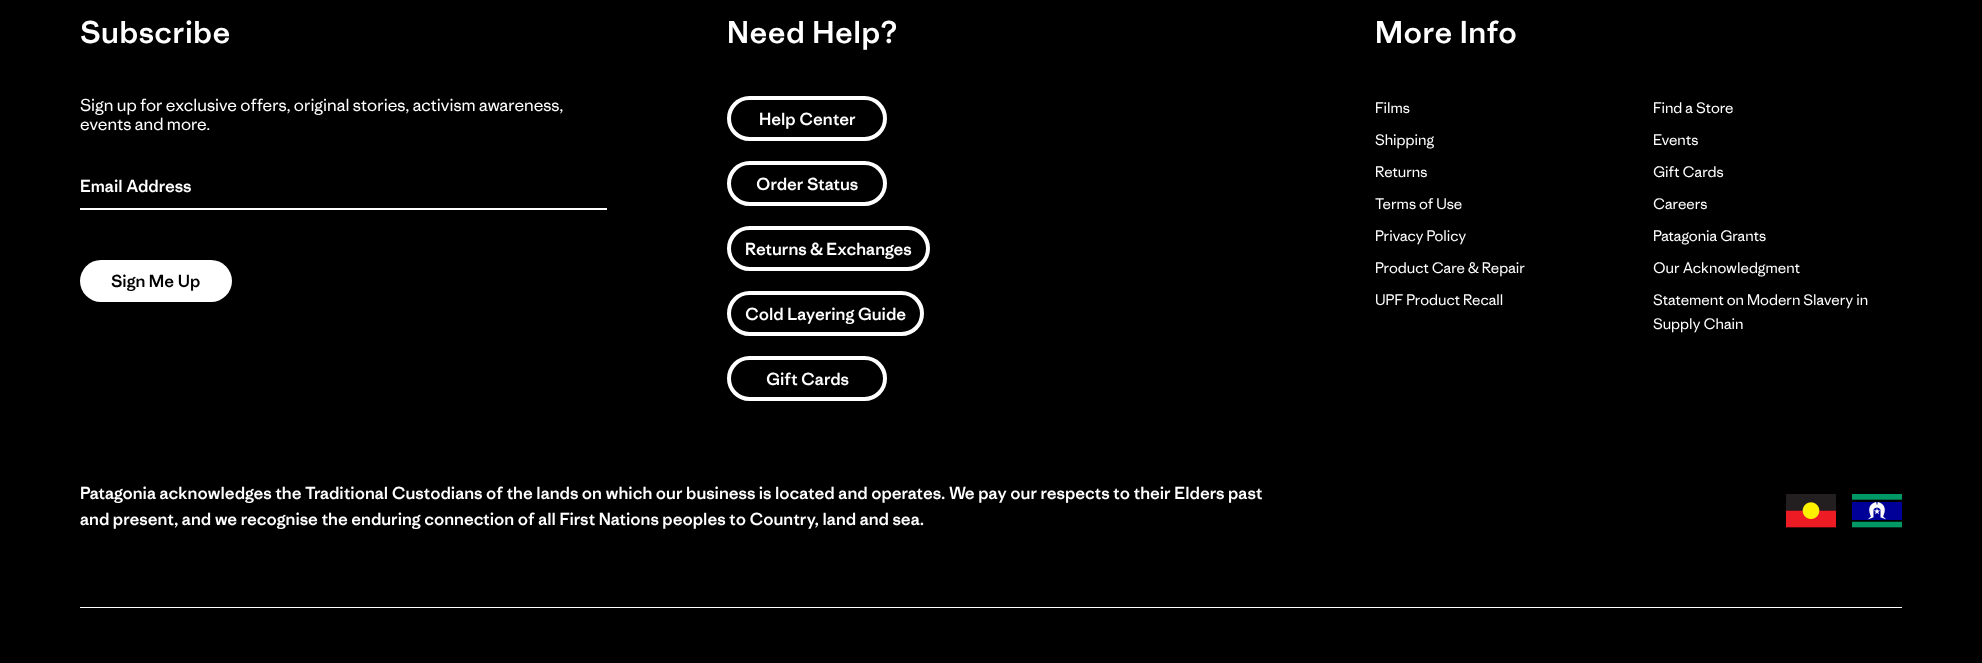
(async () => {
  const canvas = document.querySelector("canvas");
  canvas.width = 1982;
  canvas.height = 663;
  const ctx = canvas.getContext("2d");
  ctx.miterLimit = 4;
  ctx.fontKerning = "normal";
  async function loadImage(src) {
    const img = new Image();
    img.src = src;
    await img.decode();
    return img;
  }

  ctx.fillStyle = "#000000";
  ctx.fillRect(0, 0, 1982, 663);
  ctx.fillStyle = "#ffffff";
  ctx.fillRect(80, 208, 527, 2);
  ctx.beginPath();
  ctx.roundRect(80, 260, 152, 42, 21);
  ctx.fill();
  ctx.beginPath();
  ctx.roundRect(729, 98, 156, 41, 20.5);
  ctx.strokeStyle = "#ffffff";
  ctx.lineWidth = 4;
  ctx.stroke();
  ctx.beginPath();
  ctx.roundRect(729, 163, 156, 41, 20.5);
  ctx.stroke();
  ctx.beginPath();
  ctx.roundRect(729, 228, 199, 41, 20.5);
  ctx.stroke();
  ctx.beginPath();
  ctx.roundRect(729, 293, 193, 41, 20.5);
  ctx.stroke();
  ctx.beginPath();
  ctx.roundRect(729, 358, 156, 41, 20.5);
  ctx.stroke();
  ctx.fillRect(80, 607, 1822, 1);
  ctx.drawImage(await loadImage("img/1.png"), 1786, 494, 50, 34);
  ctx.drawImage(await loadImage("img/2.png"), 1852, 494, 50, 34);
  ctx.letterSpacing = "0.5px";
  ctx.font = "500 29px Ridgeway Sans";
  ctx.fillText("Subscribe", 80, 43);
  ctx.letterSpacing = "0px";
  ctx.font = "16px Ridgeway Sans";
  ctx.fillText("Sign up for exclusive offers, original stories, activism awareness,", 80, 111);
  ctx.fillText("events and more.", 80, 130);
  ctx.font = "500 16px Ridgeway Sans";
  ctx.fillText("Email Address", 80, 192);
  ctx.fillStyle = "#000000";
  ctx.fillText("Sign Me Up", 111, 287);
  ctx.letterSpacing = "0.5px";
  ctx.font = "500 29px Ridgeway Sans";
  ctx.fillStyle = "#ffffff";
  ctx.fillText("Need Help?", 727, 43);
  ctx.letterSpacing = "0px";
  ctx.font = "500 16px Ridgeway Sans";
  for (const [text, x, y] of [
    ["Help Center", 759, 125],
    ["Order Status", 756, 190],
    ["Returns & Exchanges", 745, 255],
    ["Cold Layering Guide", 745, 320],
    ["Gift Cards", 766, 385],
  ]) {
    ctx.fillText(text, x, y);
  }
  ctx.letterSpacing = "0.5px";
  ctx.font = "500 29px Ridgeway Sans";
  ctx.fillText("More Info", 1375, 43);
  ctx.letterSpacing = "0px";
  ctx.font = "14px Ridgeway Sans";
  for (const [text, x, y] of [
    ["Films", 1375, 113],
    ["Find a Store", 1653, 113],
    ["Shipping", 1375, 145],
    ["Events", 1653, 145],
    ["Returns", 1375, 177],
    ["Gift Cards", 1653, 177],
    ["Terms of Use", 1375, 209],
    ["Careers", 1653, 209],
    ["Privacy Policy", 1375, 241],
    ["Patagonia Grants", 1653, 241],
    ["Product Care & Repair", 1375, 273],
    ["Our Acknowledgment", 1653, 273],
    ["UPF Product Recall", 1375, 305],
    ["Statement on Modern Slavery in", 1653, 305],
    ["Supply Chain", 1653, 329],
  ]) {
    ctx.fillText(text, x, y);
  }
  ctx.font = "500 16px Ridgeway Sans";
  ctx.fillText("Patagonia acknowledges the Traditional Custodians of the lands on which our business is located and operates. We pay our respects to their Elders past", 80, 499);
  ctx.fillText("and present, and we recognise the enduring connection of all First Nations peoples to Country, land and sea.", 80, 525);
})();
